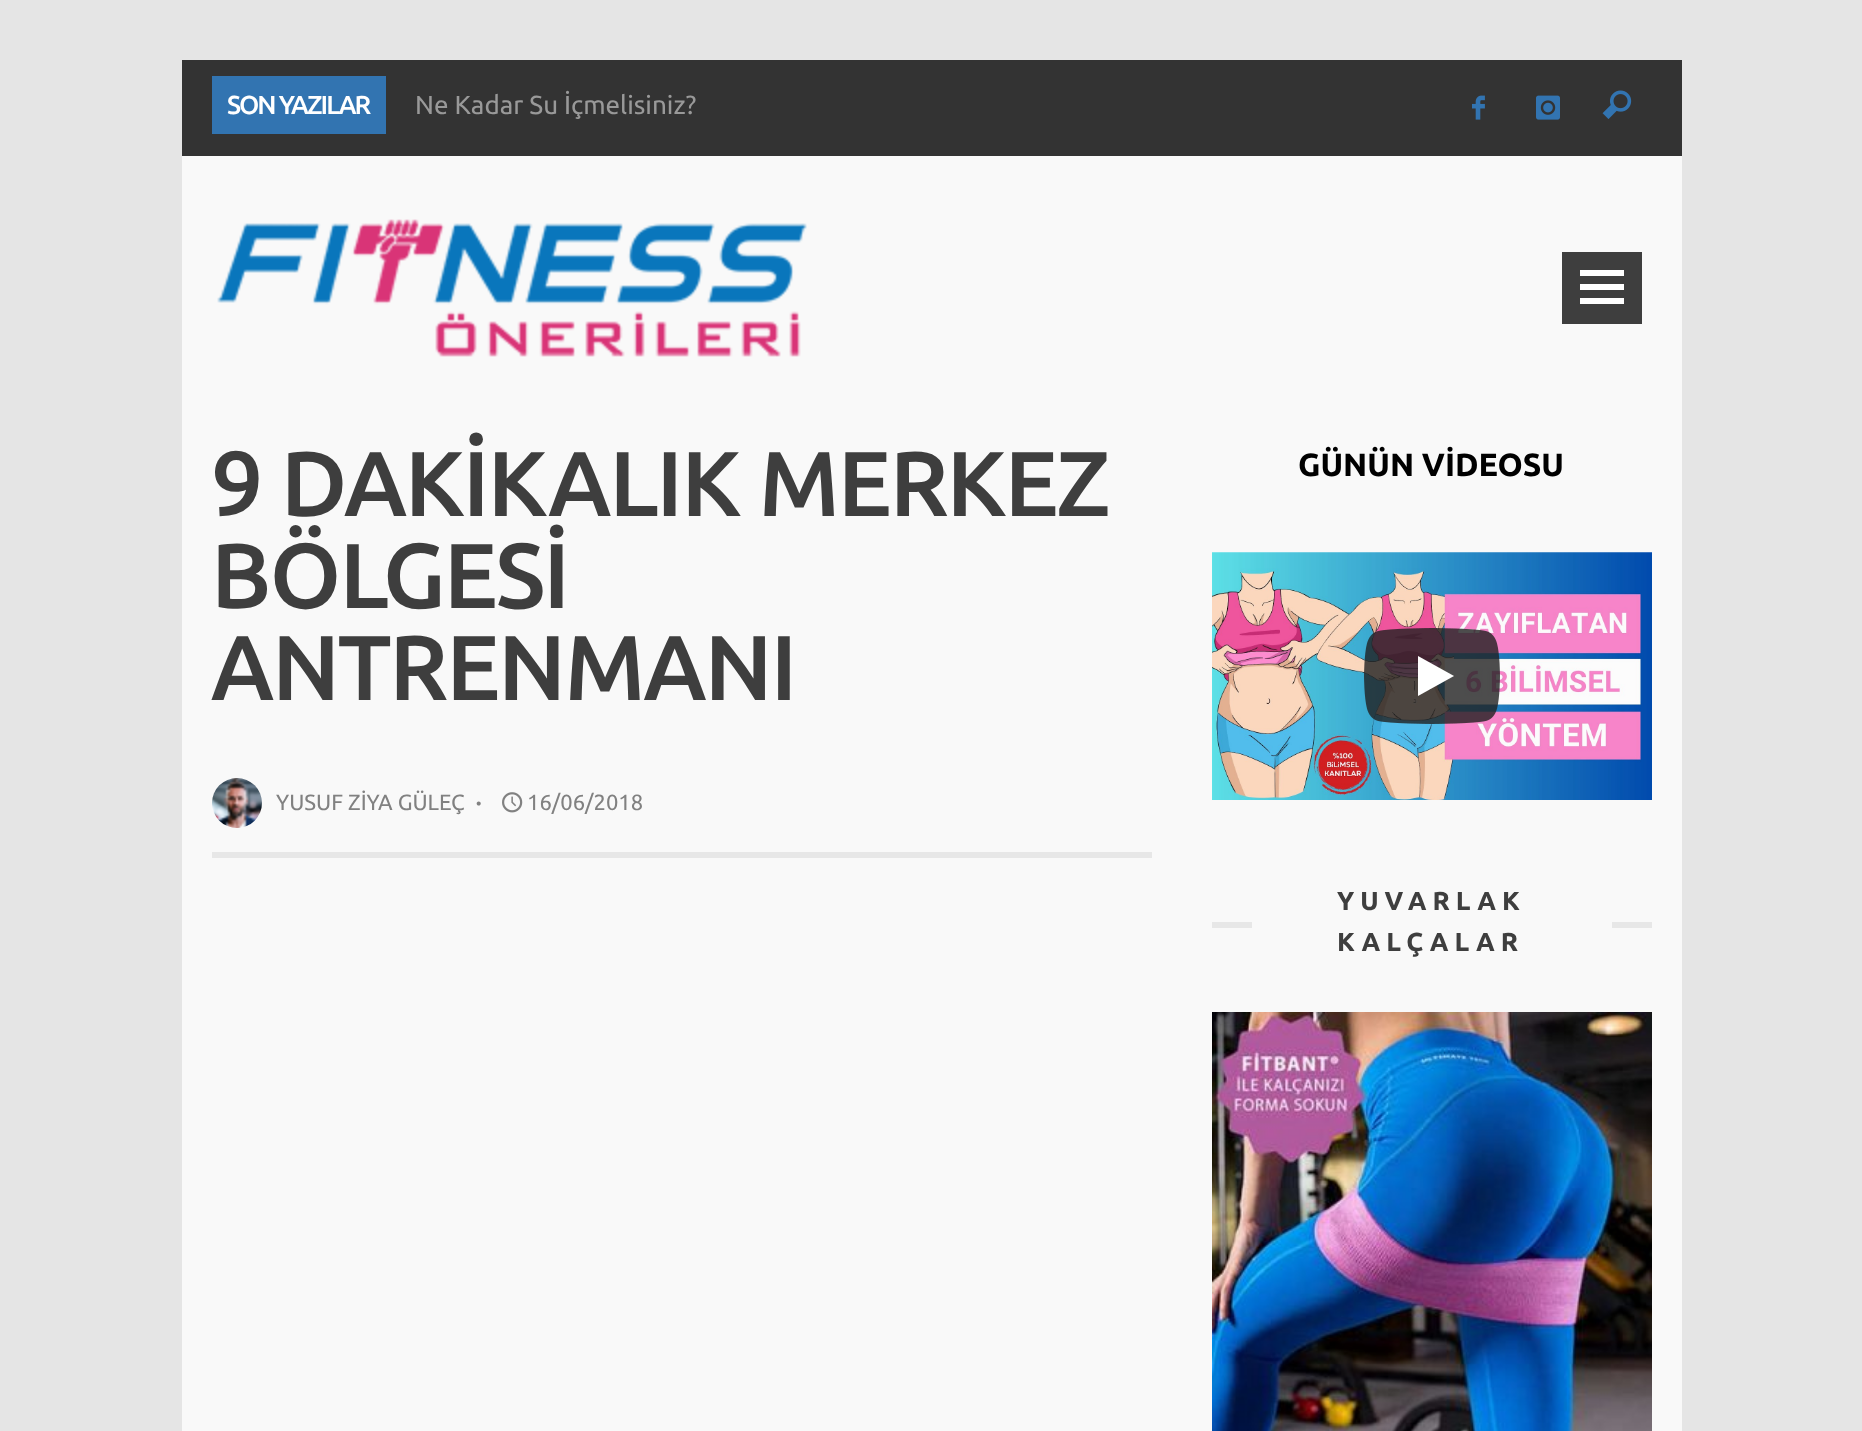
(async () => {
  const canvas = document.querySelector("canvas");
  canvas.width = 1862;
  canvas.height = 1431;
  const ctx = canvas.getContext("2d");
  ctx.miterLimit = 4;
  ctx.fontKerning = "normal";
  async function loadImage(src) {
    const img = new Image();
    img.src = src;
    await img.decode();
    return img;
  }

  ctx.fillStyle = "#e5e5e5";
  ctx.fillRect(0, 0, 1862, 1431);
  for (const [x, y, w, h, color] of [
    [182, 156, 1500, 1275, "#f9f9f9"],
    [182, 60, 1500, 96, "#333333"],
    [212, 76, 174, 58, "#3274b1"],
  ]) {
    ctx.fillStyle = color;
    ctx.fillRect(x, y, w, h);
  }
  ctx.drawImage(await loadImage("img/1.png"), 1472, 95, 13, 25);
  ctx.drawImage(await loadImage("img/2.png"), 1536, 95, 24, 25);
  ctx.drawImage(await loadImage("img/3.png"), 1602, 90, 30, 29);
  ctx.drawImage(await loadImage("img/4.png"), 217, 219, 590, 138);
  for (const [x, y, w, h, color] of [
    [1562, 252, 80, 72, "#3e3e3e"],
    [1580, 270, 44, 6, "#ffffff"],
    [1580, 284, 44, 6, "#ffffff"],
    [1580, 298, 44, 6, "#ffffff"],
    [212, 852, 940, 6, "#e7e7e7"],
  ]) {
    ctx.fillStyle = color;
    ctx.fillRect(x, y, w, h);
  }
  ctx.drawImage(await loadImage("img/5.png"), 212, 778, 50, 50);
  ctx.drawImage(await loadImage("img/6.png"), 502, 792, 21, 21);
  ctx.drawImage(await loadImage("img/7.png"), 1212, 552, 440, 248);
  ctx.drawImage(await loadImage("img/8.png"), 1364, 628, 136, 96);
  ctx.fillRect(1212, 922, 40, 6);
  ctx.fillRect(1612, 922, 40, 6);
  ctx.drawImage(await loadImage("img/9.png"), 1212, 1012, 440, 419);
  ctx.letterSpacing = "-2px";
  ctx.font = "500 26px Ubuntu";
  ctx.fillStyle = "#ffffff";
  ctx.fillText("SON YAZILAR", 227, 114);
  ctx.letterSpacing = "0px";
  ctx.font = "26px Ubuntu";
  ctx.fillStyle = "#999999";
  ctx.fillText("Ne Kadar Su İçmelisiniz?", 415, 114);
  ctx.letterSpacing = "-2px";
  ctx.font = "500 92px Ubuntu";
  ctx.fillStyle = "#3e3e3e";
  for (const [text, x, y] of [
    ["9 DAKİKALIK MERKEZ", 211, 516],
    ["BÖLGESİ", 211, 608],
    ["ANTRENMANI", 211, 700],
  ]) {
    ctx.fillText(text, x, y);
  }
  ctx.letterSpacing = "0px";
  ctx.font = "22px Ubuntu";
  ctx.fillStyle = "#818181";
  ctx.fillText("YUSUF ZİYA GÜLEÇ", 276, 810);
  ctx.font = "bold 22px Ubuntu";
  ctx.fillText("·", 476, 810);
  ctx.font = "22px Ubuntu";
  ctx.fillText("16/06/2018", 527, 810);
  ctx.font = "bold 32px Ubuntu";
  ctx.fillStyle = "#000000";
  ctx.fillText("GÜNÜN VİDEOSU", 1298, 476);
  ctx.letterSpacing = "6px";
  ctx.font = "bold 26px Ubuntu";
  ctx.fillStyle = "#3e3e3e";
  ctx.fillText("YUVARLAK", 1337, 910);
  ctx.fillText("KALÇALAR", 1337, 951);
})();
